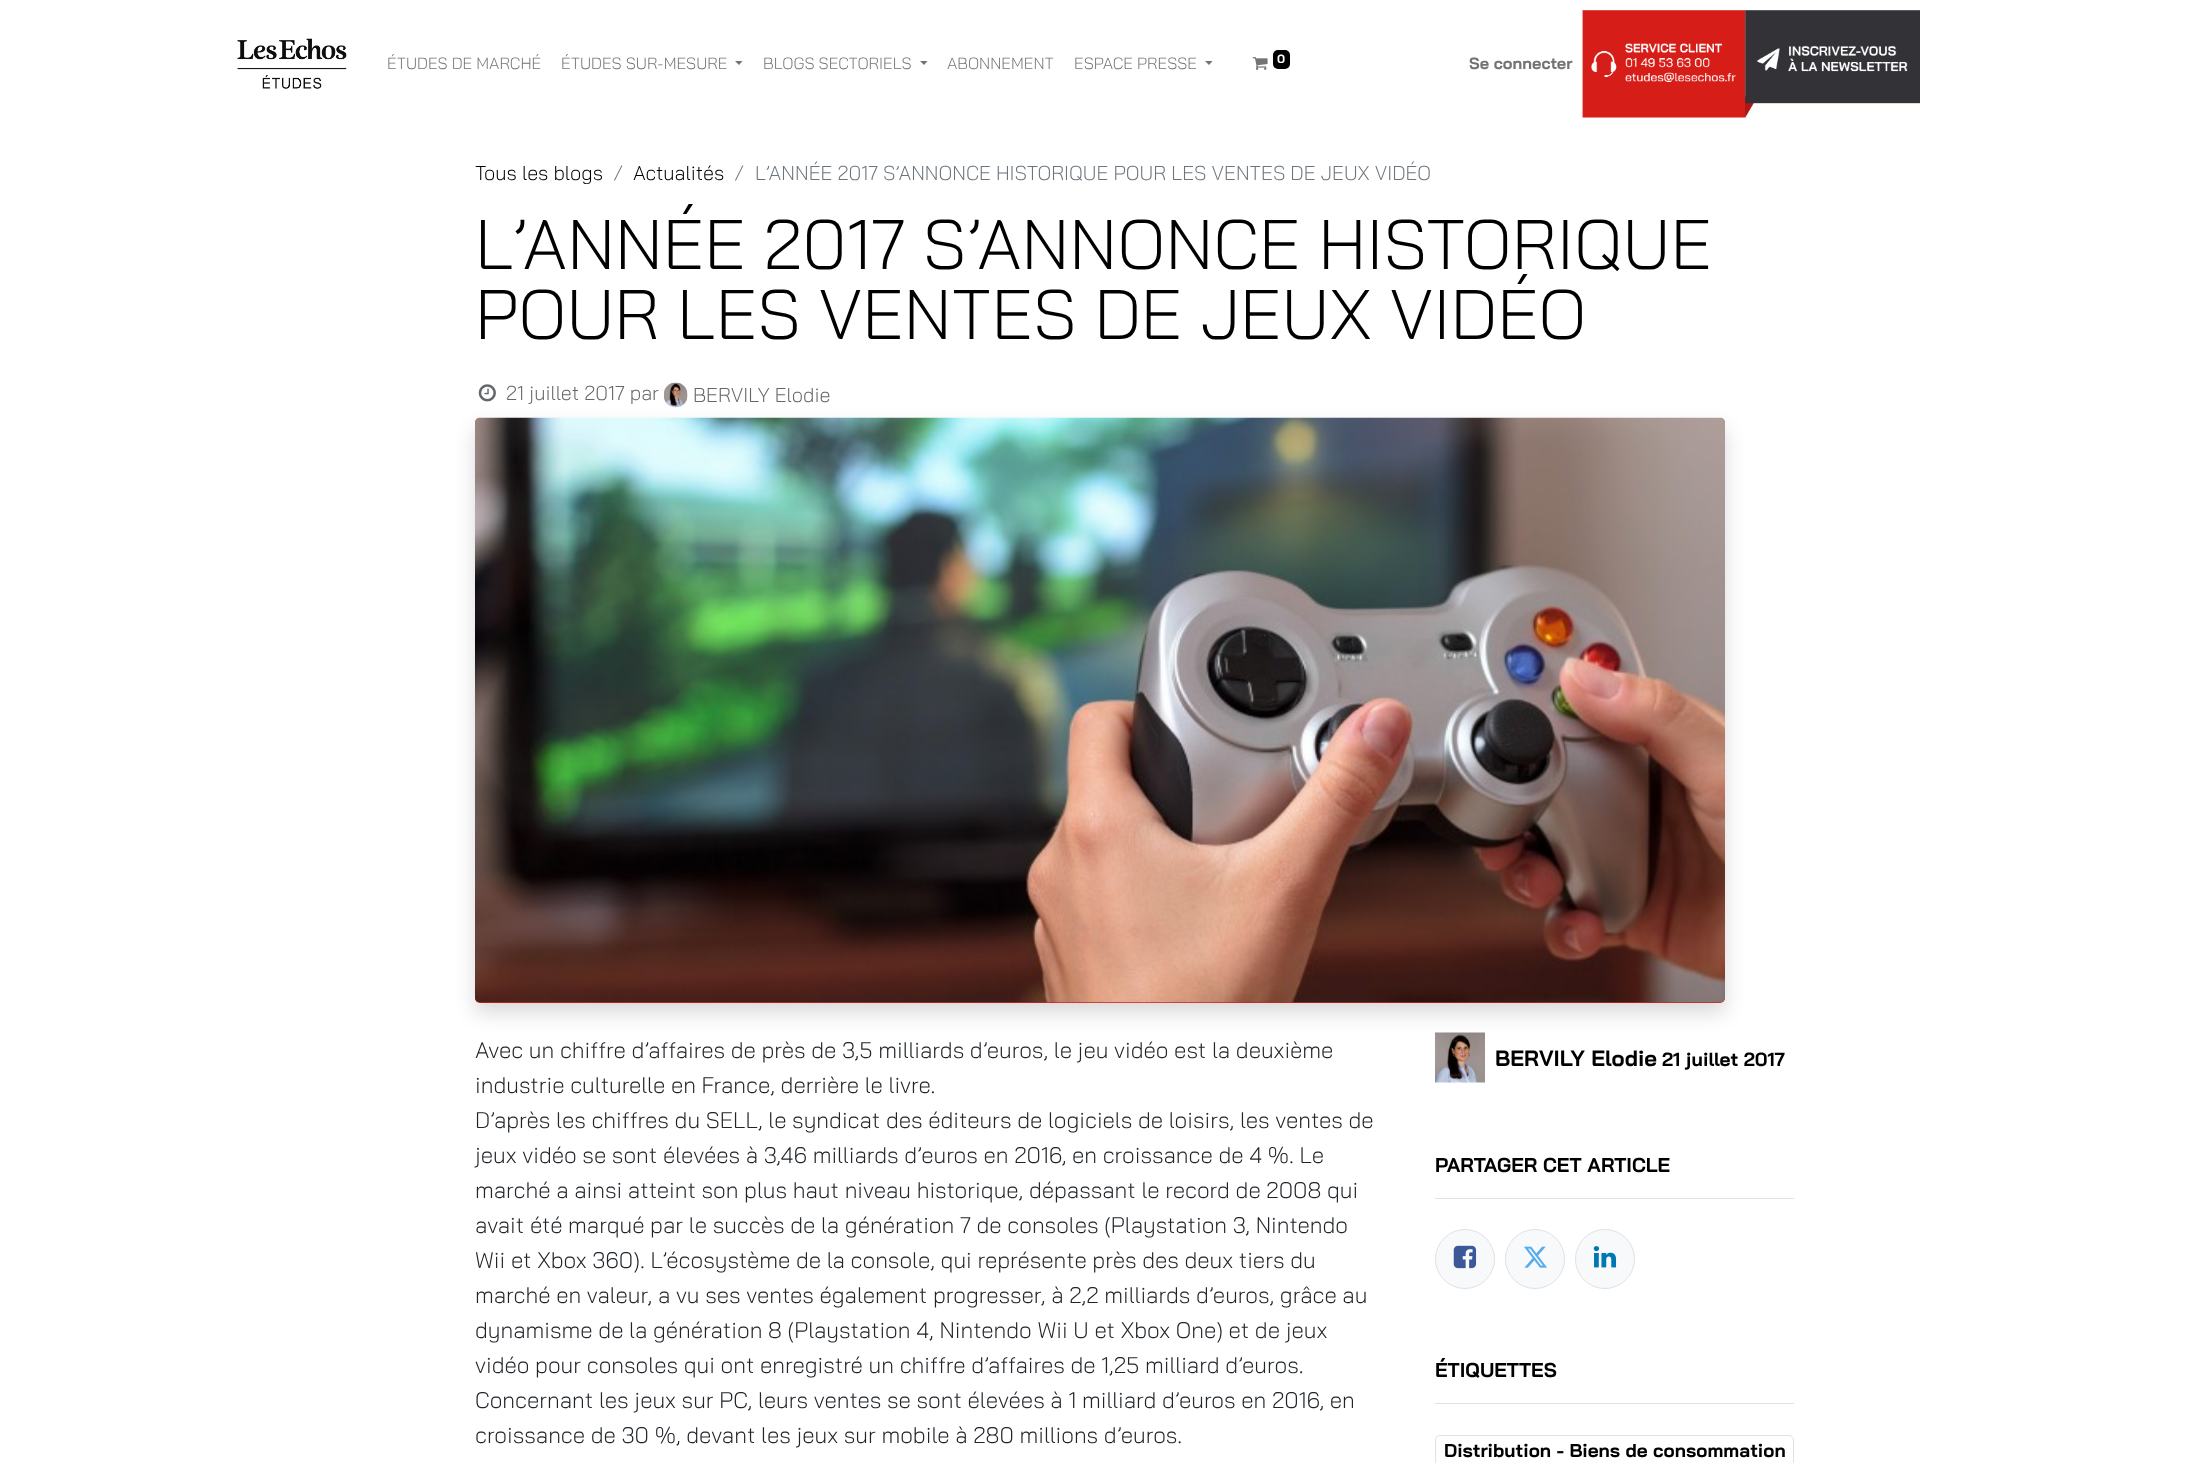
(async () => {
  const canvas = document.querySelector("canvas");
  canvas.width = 2200;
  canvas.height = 1463;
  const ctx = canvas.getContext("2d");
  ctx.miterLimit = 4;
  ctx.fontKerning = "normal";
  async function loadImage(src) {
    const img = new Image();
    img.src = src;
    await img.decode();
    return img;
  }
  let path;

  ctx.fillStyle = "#ffffff";
  ctx.fillRect(0, 0, 2200, 1463);
  ctx.drawImage(await loadImage("img/1.png"), 237, 38, 110, 51);
  ctx.fillStyle = "#737373";
  path = new Path2D("M735 61H742.5L739 65Z");
  ctx.fill(path);
  path = new Path2D("M920 61H927.5L924 65Z");
  ctx.fill(path);
  path = new Path2D("M1205 61H1212.5L1209 65Z");
  ctx.fill(path);
  ctx.drawImage(await loadImage("img/2.png"), 1252, 57, 16, 13);
  ctx.fillStyle = "#000000";
  ctx.beginPath();
  ctx.roundRect(1273, 50, 17, 19, 5);
  ctx.fill();
  ctx.drawImage(await loadImage("img/3.png"), 1582, 10, 172, 108);
  ctx.drawImage(await loadImage("img/4.png"), 1745, 10, 175, 94);
  ctx.drawImage(await loadImage("img/5.png"), 478, 384, 18, 18);
  ctx.drawImage(await loadImage("img/6.png"), 663, 382, 25, 26);
  ctx.fillStyle = "rgba(0, 0, 0, 0.15)";
  ctx.filter = "blur(10px)";
  ctx.beginPath();
  ctx.roundRect(475, 428, 1250, 585, 5);
  ctx.fill();
  ctx.filter = "none";
  ctx.fillStyle = "#cf231f";
  ctx.beginPath();
  ctx.roundRect(475, 418, 1250, 585, 5);
  ctx.fill();
  ctx.drawImage(await loadImage("img/7.png"), 475, 417, 1250, 586);
  ctx.drawImage(await loadImage("img/8.png"), 1435, 1032, 50, 51);
  ctx.fillStyle = "#dee2e6";
  ctx.fillRect(1435, 1198, 359, 1);
  ctx.fillStyle = "#f8f9fa";
  ctx.beginPath();
  ctx.arc(1465, 1259, 29.5, 0, Math.PI * 2);
  ctx.fill();
  ctx.strokeStyle = "#dee2e6";
  ctx.stroke();
  ctx.drawImage(await loadImage("img/9.png"), 1453, 1245, 24, 24);
  ctx.beginPath();
  ctx.arc(1535, 1259, 29.5, 0, Math.PI * 2);
  ctx.fill();
  ctx.stroke();
  ctx.drawImage(await loadImage("img/10.png"), 1524, 1246, 23, 22);
  ctx.beginPath();
  ctx.arc(1605, 1259, 29.5, 0, Math.PI * 2);
  ctx.fill();
  ctx.stroke();
  ctx.drawImage(await loadImage("img/11.png"), 1593, 1246, 24, 22);
  ctx.fillStyle = "#dee2e6";
  ctx.fillRect(1435, 1403, 359, 1);
  ctx.beginPath();
  ctx.roundRect(1435.5, 1435.5, 358, 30, 4.5);
  ctx.stroke();
  ctx.font = "300 16.25px Bai Jamjuree";
  ctx.fillStyle = "#737373";
  for (const [text, x, y] of [
    ["ÉTUDES DE MARCHÉ", 387, 69],
    ["ÉTUDES SUR-MESURE", 561, 69],
    ["BLOGS SECTORIELS", 763, 69],
    ["ABONNEMENT", 947, 69],
    ["ESPACE PRESSE", 1074, 69],
  ]) {
    ctx.fillText(text, x, y);
  }
  ctx.font = "bold 12px Bai Jamjuree";
  ctx.fillStyle = "#ffffff";
  ctx.fillText("0", 1277, 63);
  ctx.font = "bold 16.25px Bai Jamjuree";
  ctx.fillStyle = "#737373";
  ctx.fillText("Se connecter", 1469, 69);
  ctx.font = "300 20px Bai Jamjuree";
  ctx.fillStyle = "#000000";
  ctx.fillText("Tous les blogs", 475, 180);
  ctx.fillStyle = "#6c757d";
  ctx.fillText("/", 613, 180);
  ctx.fillStyle = "#000000";
  ctx.fillText("Actualités", 633, 180);
  ctx.fillStyle = "#6c757d";
  ctx.fillText("/", 734, 180);
  ctx.fillText("L’ANNÉE 2017 S’ANNONCE HISTORIQUE POUR LES VENTES DE JEUX VIDÉO", 755, 180);
  ctx.font = "300 70px 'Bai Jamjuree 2'";
  ctx.fillStyle = "#000000";
  ctx.fillText("L’ANNÉE 2017 S’ANNONCE HISTORIQUE", 475, 269);
  ctx.fillText("POUR LES VENTES DE JEUX VIDÉO", 475, 339);
  ctx.font = "300 20px Bai Jamjuree";
  ctx.fillStyle = "#646669";
  ctx.fillText("21 juillet 2017 par", 506, 400);
  ctx.fillText("BERVILY Elodie", 693, 402);
  ctx.font = "300 22.5px Bai Jamjuree";
  ctx.fillStyle = "#212529";
  ctx.fillText("Avec un chiffre d’affaires de près de 3,5 milliards d’euros, le jeu vidéo est la deuxième", 475, 1058);
  ctx.fillText("industrie culturelle en France, derrière le livre.", 475, 1093);
  ctx.font = "300 22.5px 'Bai Jamjuree 2'";
  for (const [text, x, y] of [
    ["D’après les chiffres du SELL, le syndicat des éditeurs de logiciels de loisirs, les ventes de", 475, 1128],
    ["jeux vidéo se sont élevées à 3,46 milliards d’euros en 2016, en croissance de 4 %. Le", 475, 1163],
    ["marché a ainsi atteint son plus haut niveau historique, dépassant le record de 2008 qui", 475, 1198],
    ["avait été marqué par le succès de la génération 7 de consoles (Playstation 3, Nintendo", 475, 1233],
    ["Wii et Xbox 360). L’écosystème de la console, qui représente près des deux tiers du", 475, 1268],
    ["marché en valeur, a vu ses ventes également progresser, à 2,2 milliards d’euros, grâce au", 475, 1303],
    ["dynamisme de la génération 8 (Playstation 4, Nintendo Wii U et Xbox One) et de jeux", 475, 1338],
    ["vidéo pour consoles qui ont enregistré un chiffre d’affaires de 1,25 milliard d’euros.", 475, 1373],
    ["Concernant les jeux sur PC, leurs ventes se sont élevées à 1 milliard d’euros en 2016, en", 475, 1408],
    ["croissance de 30 %, devant les jeux sur mobile à 280 millions d’euros.", 475, 1443],
  ]) {
    ctx.fillText(text, x, y);
  }
  ctx.font = "bold 22px Bai Jamjuree";
  ctx.fillStyle = "#000000";
  ctx.fillText("BERVILY Elodie", 1495, 1066);
  ctx.font = "bold 19px Bai Jamjuree";
  ctx.fillText("21 juillet 2017", 1662, 1066);
  ctx.font = "bold 20px Bai Jamjuree";
  ctx.fillText("PARTAGER CET ARTICLE", 1435, 1172);
  ctx.fillText("ÉTIQUETTES", 1435, 1377);
  ctx.font = "bold 18.75px Bai Jamjuree";
  ctx.fillText("Distribution - Biens de consommation", 1444, 1457);
})();
